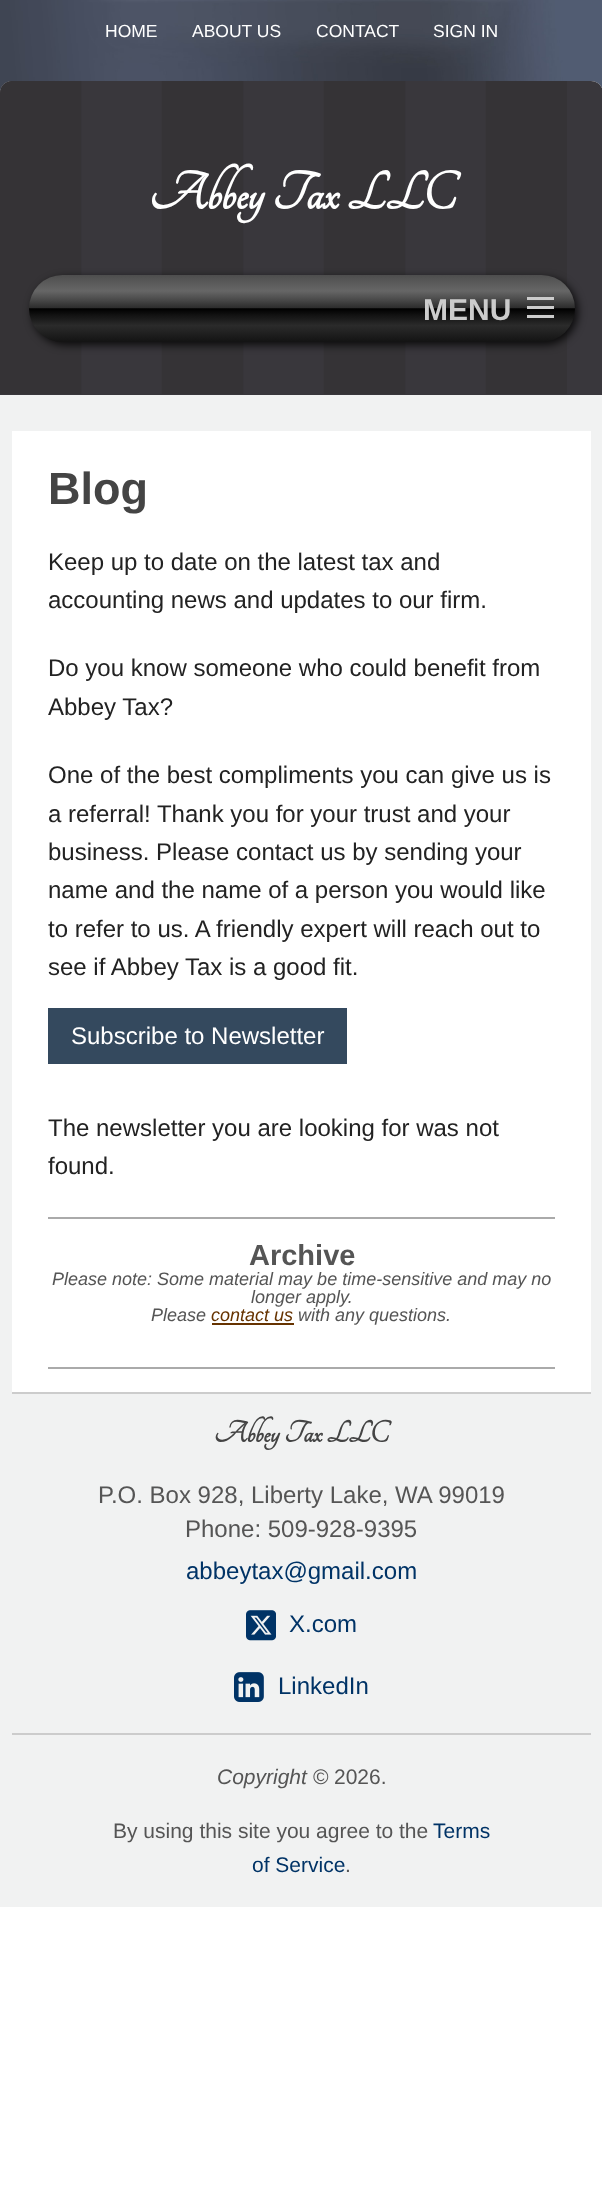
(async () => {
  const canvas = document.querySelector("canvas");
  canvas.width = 602;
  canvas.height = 2207;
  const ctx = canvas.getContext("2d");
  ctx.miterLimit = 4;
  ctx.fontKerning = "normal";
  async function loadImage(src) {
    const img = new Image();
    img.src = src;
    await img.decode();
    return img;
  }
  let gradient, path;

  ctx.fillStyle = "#ffffff";
  ctx.fillRect(0, 0, 602, 2207);
  ctx.drawImage(await loadImage("img/1.png"), 0, 0, 602, 93);
  path = new Path2D("M12 81H591C597.5 81 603 86.5 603 93V1907H0V93C0 86.5 5.5 81 12 81Z");
  ctx.fill(path);
  ctx.fillStyle = "#39373c";
  path = new Path2D("M12 81H591C597.5 81 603 86.5 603 93V395H0V93C0 86.5 5.5 81 12 81Z");
  ctx.fill(path);
  ctx.drawImage(await loadImage("img/2.png"), 0, 81, 567, 313);
  ctx.fillStyle = "rgba(0, 0, 0, 0.8)";
  ctx.filter = "blur(4.5px)";
  ctx.beginPath();
  ctx.roundRect(32, 278, 546, 67, 33.5);
  ctx.fill();
  ctx.filter = "none";
  gradient = ctx.createLinearGradient(302, 274, 302, 342);
  gradient.addColorStop(0, "#4c4c4c");
  gradient.addColorStop(0.12, "#595959");
  gradient.addColorStop(0.25, "#666666");
  gradient.addColorStop(0.39, "#474747");
  gradient.addColorStop(0.5, "#2c2c2c");
  gradient.addColorStop(0.51, "#000000");
  gradient.addColorStop(0.6, "#111111");
  gradient.addColorStop(0.76, "#2b2b2b");
  gradient.addColorStop(0.91, "#1c1c1c");
  gradient.addColorStop(1, "#131313");
  ctx.fillStyle = gradient;
  ctx.beginPath();
  ctx.roundRect(29, 275, 546, 67, 33.5);
  ctx.fill();
  for (const [x, y, w, h, color] of [
    [527, 315, 27, 3, "#cccccc"],
    [527, 306, 27, 3, "#cccccc"],
    [527, 297, 27, 3, "#cccccc"],
    [12, 395, 579, 36, "#f1f2f2"],
    [591, 395, 11, 997, "#f1f2f2"],
    [0, 395, 12, 997, "#f1f2f2"],
    [48, 1008, 299, 56, "#34495e"],
    [48, 1217, 507, 2, "#aaaaaa"],
    [48, 1367, 507, 2, "#aaaaaa"],
    [212, 1323, 82, 2, "#663300"],
    [0, 1392, 602, 515, "#f1f2f2"],
    [12, 1392, 579, 2, "#cccccc"],
  ]) {
    ctx.fillStyle = color;
    ctx.fillRect(x, y, w, h);
  }
  ctx.drawImage(await loadImage("img/3.png"), 246, 1610, 30, 31);
  ctx.drawImage(await loadImage("img/4.png"), 234, 1672, 30, 30);
  ctx.fillRect(12, 1733, 579, 2);
  ctx.font = "17.5px Liberation Sans";
  ctx.fillStyle = "#ffffff";
  for (const [text, x, y] of [
    ["HOME", 105, 37],
    ["ABOUT US", 192, 37],
    ["CONTACT", 316, 37],
    ["SIGN IN", 433, 37],
  ]) {
    ctx.fillText(text, x, y);
  }
  ctx.font = "bold 58px Tangerine";
  ctx.fillText("Abbey Tax LLC", 149, 209);
  ctx.font = "bold 30px Liberation Sans";
  ctx.fillStyle = "#cccccc";
  ctx.fillText("MENU", 423, 320);
  ctx.font = "bold 45px Liberation Sans";
  ctx.fillStyle = "#444444";
  ctx.fillText("Blog", 48, 504);
  ctx.font = "24px Liberation Sans";
  ctx.fillStyle = "#222222";
  for (const [text, x, y] of [
    ["Keep up to date on the latest tax and", 48, 570],
    ["accounting news and updates to our firm.", 48, 608],
    ["Do you know someone who could benefit from", 48, 676],
    ["Abbey Tax?", 48, 715],
    ["One of the best compliments you can give us is", 48, 783],
    ["a referral! Thank you for your trust and your", 48, 822],
    ["business. Please contact us by sending your", 48, 860],
    ["name and the name of a person you would like", 48, 898],
    ["to refer to us. A friendly expert will reach out to", 48, 937],
    ["see if Abbey Tax is a good fit.", 48, 975],
  ]) {
    ctx.fillText(text, x, y);
  }
  ctx.fillStyle = "#ffffff";
  ctx.fillText("Subscribe to Newsletter", 71, 1044);
  ctx.fillStyle = "#222222";
  ctx.fillText("The newsletter you are looking for was not", 48, 1136);
  ctx.fillText("found.", 48, 1174);
  ctx.font = "bold 29px Liberation Sans";
  ctx.fillStyle = "#555555";
  ctx.fillText("Archive", 249, 1265);
  ctx.font = "italic 18px Liberation Sans";
  for (const [text, x, y] of [
    ["Please note: Some material may be time-sensitive and may no", 52, 1285],
    ["longer apply.", 251, 1303],
    ["Please", 151, 1321],
  ]) {
    ctx.fillText(text, x, y);
  }
  ctx.fillStyle = "#663300";
  ctx.fillText("contact us", 211, 1321);
  ctx.fillStyle = "#555555";
  ctx.fillText("with any questions.", 298, 1321);
  ctx.font = "bold 33px Tangerine";
  ctx.fillStyle = "#444444";
  ctx.fillText("Abbey Tax LLC", 214, 1442);
  ctx.font = "24px Liberation Sans";
  ctx.fillStyle = "#555555";
  ctx.fillText("P.O. Box 928, Liberty Lake, WA 99019", 98, 1503);
  ctx.fillText("Phone: 509-928-9395", 185, 1537);
  ctx.fillStyle = "#003366";
  for (const [text, x, y] of [
    ["abbeytax@gmail.com", 186, 1579],
    ["X.com", 289, 1632],
    ["LinkedIn", 278, 1694],
  ]) {
    ctx.fillText(text, x, y);
  }
  ctx.font = "italic 21px Liberation Sans";
  ctx.fillStyle = "#555555";
  ctx.fillText("Copyright ©", 217, 1784);
  ctx.font = "21px Liberation Sans";
  ctx.fillText("2026.", 334, 1784);
  ctx.fillText("By using this site you agree to the", 113, 1838);
  ctx.fillStyle = "#003366";
  ctx.fillText("Terms", 433, 1838);
  ctx.fillText("of Service", 252, 1872);
  ctx.fillStyle = "#555555";
  ctx.fillText(".", 345, 1872);
})();
